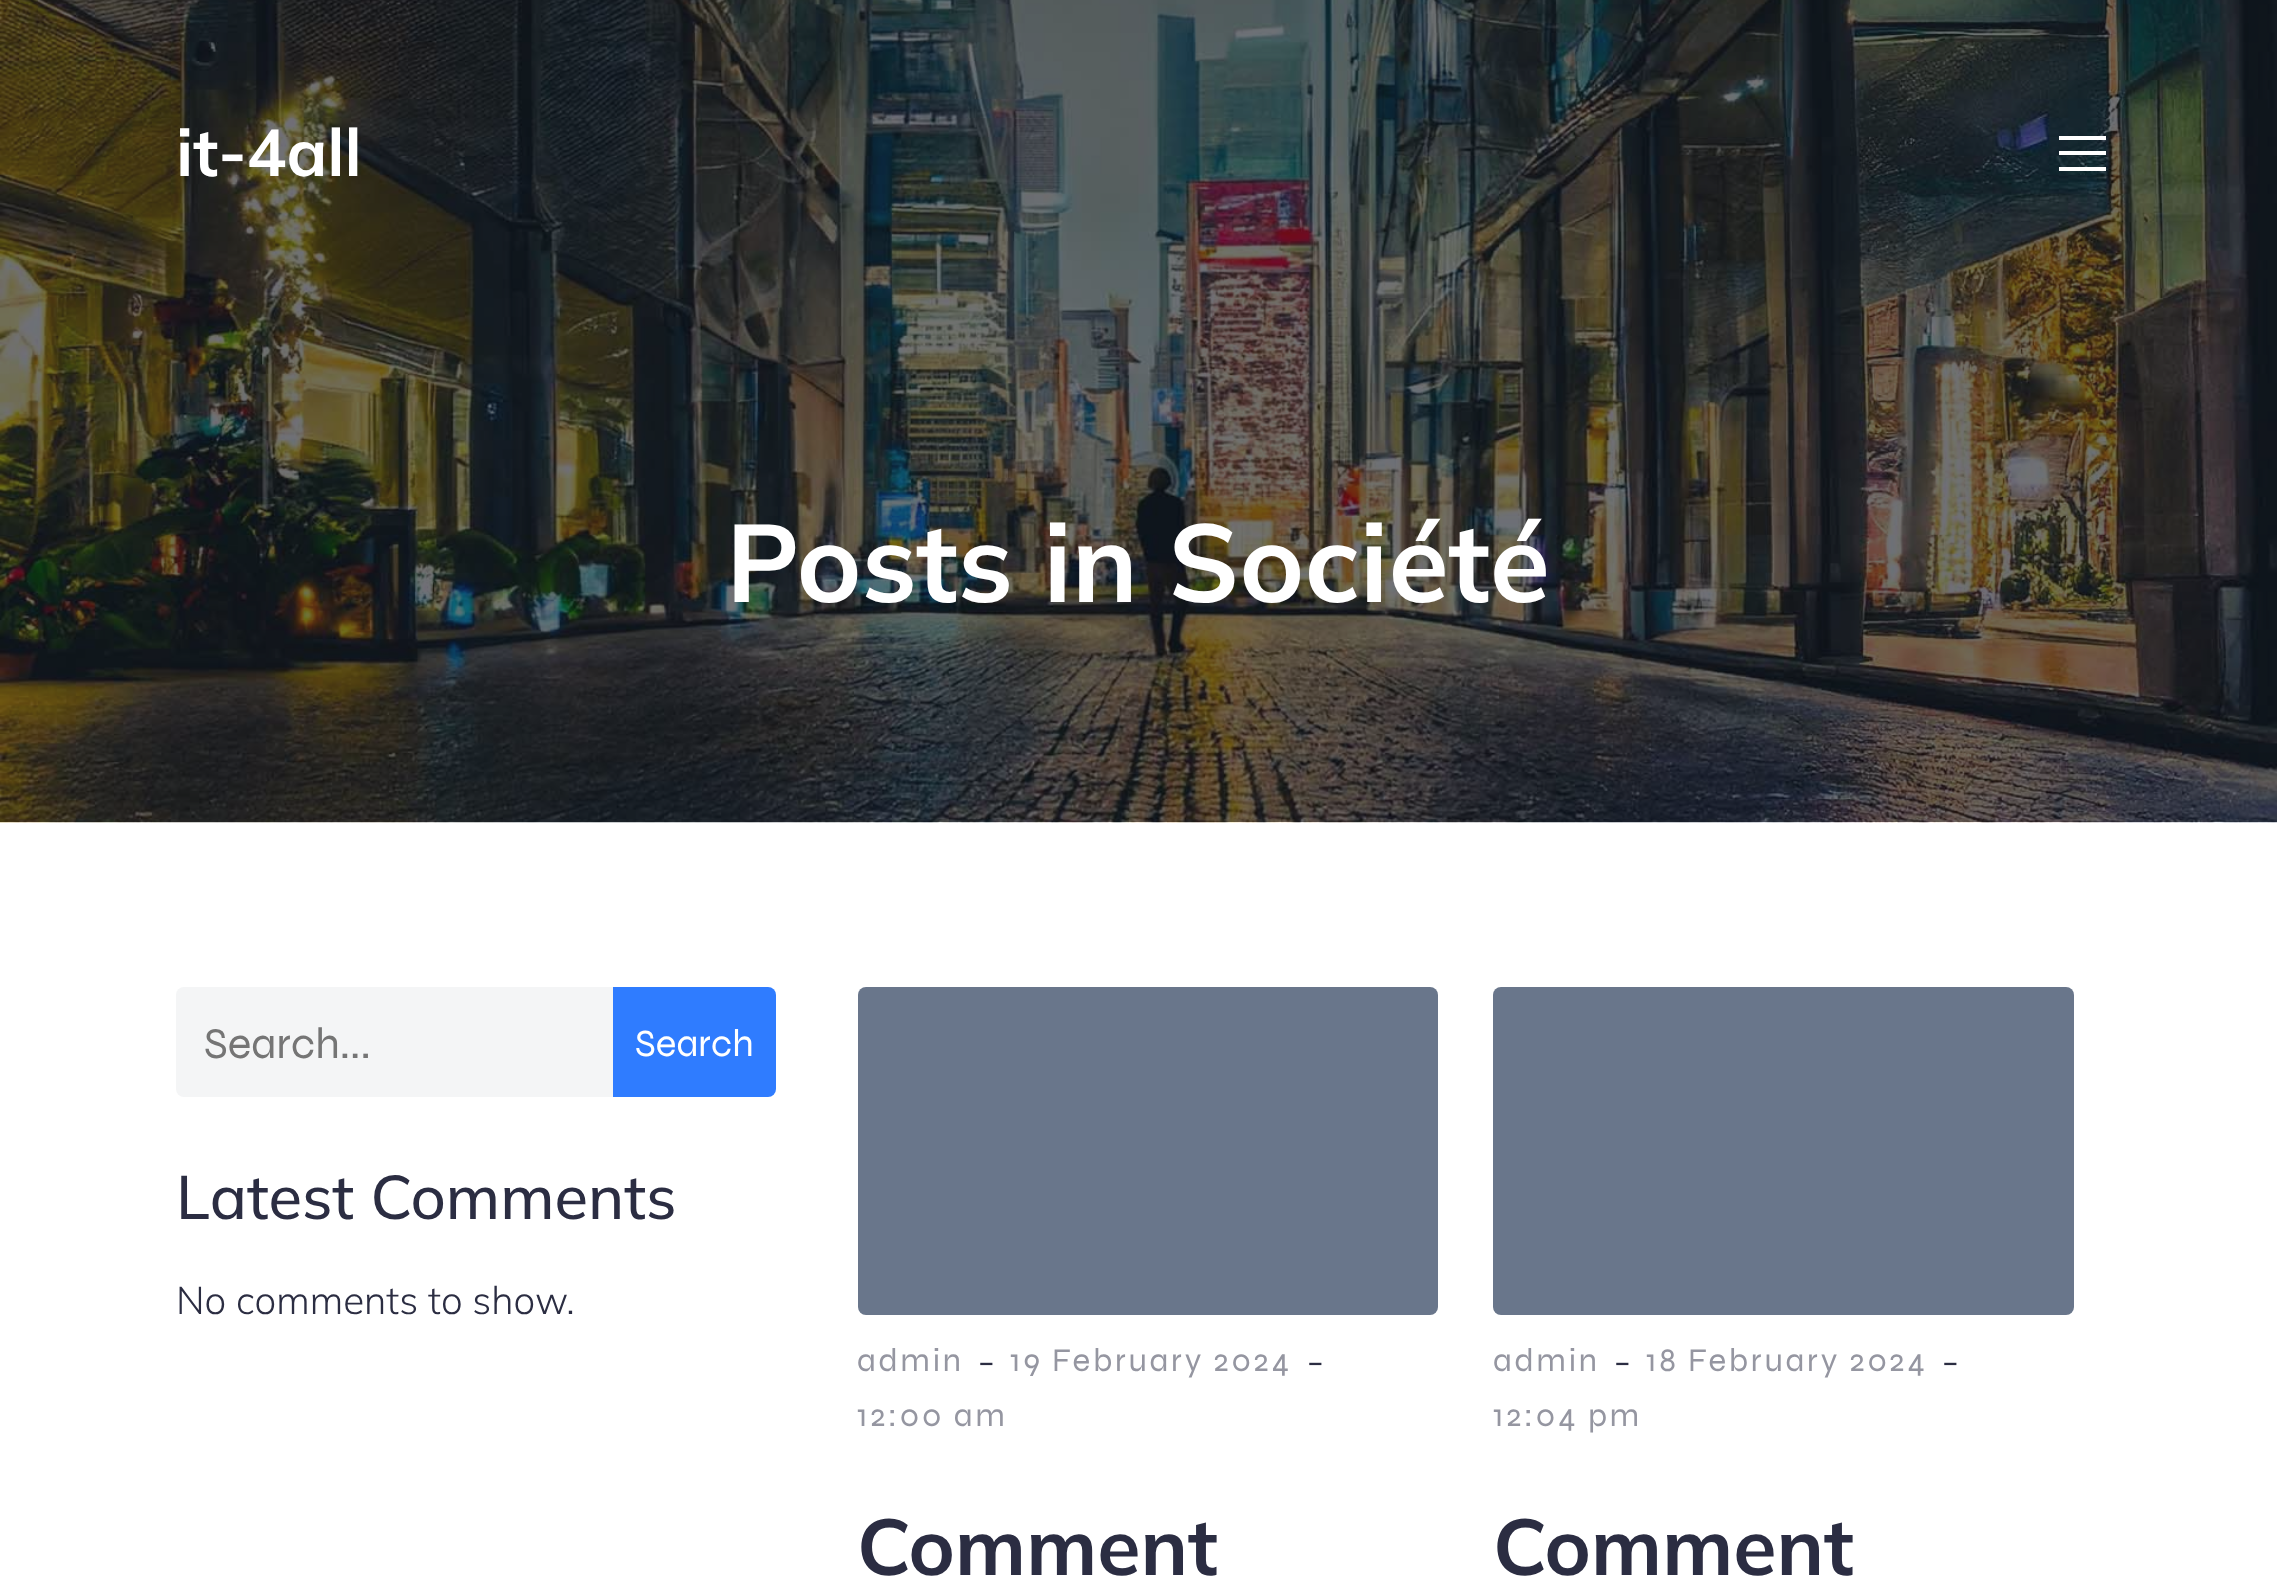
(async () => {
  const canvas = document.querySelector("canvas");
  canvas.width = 2277;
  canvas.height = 1596;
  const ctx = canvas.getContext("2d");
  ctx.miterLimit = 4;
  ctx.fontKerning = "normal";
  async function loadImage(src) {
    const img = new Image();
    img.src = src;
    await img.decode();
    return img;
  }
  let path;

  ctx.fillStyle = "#ffffff";
  ctx.fillRect(0, 0, 2277, 1596);
  ctx.drawImage(await loadImage("img/1.png"), 0, 0, 2277, 823);
  path = new Path2D("M2059 136H2106V140H2059ZM2059 151H2106V155H2059ZM2059 167H2106V171H2059Z");
  ctx.fill(path);
  ctx.fillStyle = "#f4f5f6";
  ctx.beginPath();
  ctx.roundRect(176, 987, 437, 110, [8, 0, 0, 8]);
  ctx.fill();
  ctx.fillStyle = "#2f7cff";
  ctx.beginPath();
  ctx.roundRect(613, 987, 163, 110, [0, 8, 8, 0]);
  ctx.fill();
  ctx.fillStyle = "#69768b";
  ctx.beginPath();
  ctx.roundRect(858, 987, 580, 328, 8);
  ctx.fill();
  ctx.beginPath();
  ctx.roundRect(1493, 987, 581, 328, 8);
  ctx.fill();
  ctx.font = "bold 66px Mulish";
  ctx.fillStyle = "#ffffff";
  ctx.fillText("it-4all", 176, 176);
  ctx.font = "bold 110px Mulish";
  ctx.fillText("Posts in Société", 726, 602);
  ctx.font = "44px Syne";
  ctx.fillStyle = "#757575";
  ctx.fillText("Search...", 204, 1058);
  ctx.font = "38.5px Syne";
  ctx.fillStyle = "#ffffff";
  ctx.fillText("Search", 635, 1056);
  ctx.font = "500 61.5px Mulish";
  ctx.fillStyle = "#2b2d42";
  ctx.fillText("Latest Comments", 176, 1219);
  ctx.font = "300 38.5px Mulish";
  ctx.fillText("No comments to show.", 176, 1314);
  ctx.letterSpacing = "2.75px";
  ctx.font = "33px Syne";
  ctx.fillStyle = "#9596a1";
  ctx.fillText("admin", 857, 1371);
  ctx.letterSpacing = "0px";
  ctx.font = "300 44px Mulish";
  ctx.fillStyle = "#2b2d42";
  ctx.fillText("-", 977, 1376);
  ctx.letterSpacing = "2.75px";
  ctx.font = "33px Syne";
  ctx.fillStyle = "#9596a1";
  ctx.fillText("19 February 2024", 1010, 1371);
  ctx.letterSpacing = "0px";
  ctx.font = "300 44px Mulish";
  ctx.fillStyle = "#2b2d42";
  ctx.fillText("-", 1306, 1376);
  ctx.letterSpacing = "2.75px";
  ctx.font = "33px Syne";
  ctx.fillStyle = "#9596a1";
  ctx.fillText("12:00 am", 857, 1426);
  ctx.letterSpacing = "0px";
  ctx.font = "bold 79px Mulish";
  ctx.fillStyle = "#2b2d42";
  ctx.fillText("Comment", 857, 1575);
  ctx.letterSpacing = "2.75px";
  ctx.font = "33px Syne";
  ctx.fillStyle = "#9596a1";
  ctx.fillText("admin", 1493, 1371);
  ctx.letterSpacing = "0px";
  ctx.font = "300 44px Mulish";
  ctx.fillStyle = "#2b2d42";
  ctx.fillText("-", 1613, 1376);
  ctx.letterSpacing = "2.75px";
  ctx.font = "33px Syne";
  ctx.fillStyle = "#9596a1";
  ctx.fillText("18 February 2024", 1646, 1371);
  ctx.letterSpacing = "0px";
  ctx.font = "300 44px Mulish";
  ctx.fillStyle = "#2b2d42";
  ctx.fillText("-", 1941, 1376);
  ctx.letterSpacing = "2.75px";
  ctx.font = "33px Syne";
  ctx.fillStyle = "#9596a1";
  ctx.fillText("12:04 pm", 1493, 1426);
  ctx.letterSpacing = "0px";
  ctx.font = "bold 79px Mulish";
  ctx.fillStyle = "#2b2d42";
  ctx.fillText("Comment", 1493, 1575);
})();
